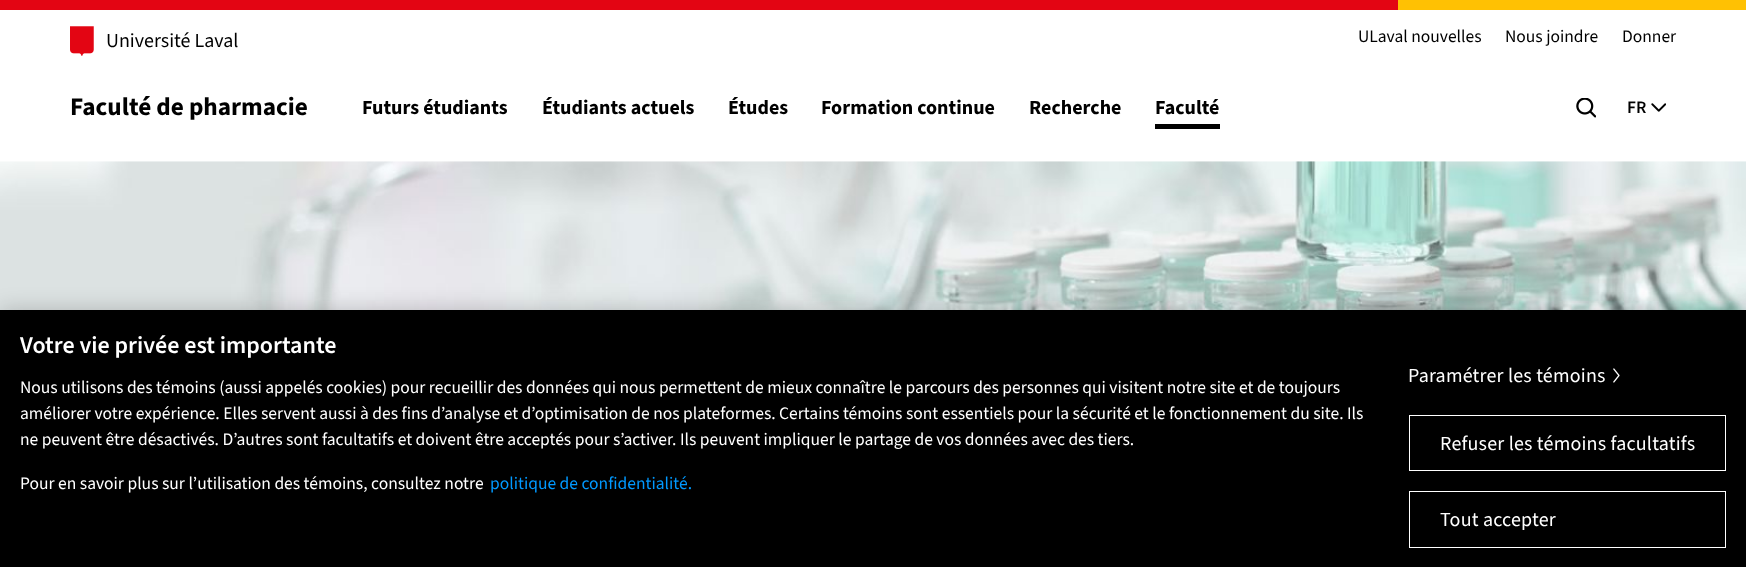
(async () => {
  const canvas = document.querySelector("canvas");
  canvas.width = 1746;
  canvas.height = 567;
  const ctx = canvas.getContext("2d");
  ctx.miterLimit = 4;
  ctx.fontKerning = "normal";
  async function loadImage(src) {
    const img = new Image();
    img.src = src;
    await img.decode();
    return img;
  }

  ctx.fillStyle = "#ffffff";
  ctx.fillRect(0, 0, 1746, 567);
  ctx.fillStyle = "#e30513";
  ctx.fillRect(0, 0, 1398, 10);
  ctx.fillStyle = "#ffc103";
  ctx.fillRect(1398, 0, 348, 10);
  ctx.drawImage(await loadImage("img/1.png"), 70, 26, 24, 30);
  ctx.fillStyle = "#000000";
  ctx.fillRect(1155, 124, 65, 5);
  ctx.drawImage(await loadImage("img/2.png"), 1576, 98, 20, 20);
  ctx.drawImage(await loadImage("img/3.png"), 1651, 103, 15, 9);
  ctx.drawImage(await loadImage("img/4.png"), 0, 161, 1746, 149);
  ctx.fillStyle = "rgba(0, 0, 0, 0.2)";
  ctx.filter = "blur(11px)";
  ctx.beginPath();
  ctx.rect(0, 310, 1746, 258);
  ctx.fill();
  ctx.filter = "none";
  ctx.fillStyle = "#000000";
  ctx.fillRect(0, 310, 1746, 257);
  ctx.drawImage(await loadImage("img/5.png"), 1613, 368, 7, 15);
  ctx.strokeStyle = "#ffffff";
  ctx.strokeRect(1409.5, 415.5, 316, 55);
  ctx.strokeRect(1409.5, 491.5, 316, 56);
  ctx.font = "20px 'Source Sans 3'";
  ctx.fillText("Université Laval", 106, 47);
  ctx.font = "17.5px 'Source Sans 3'";
  for (const [text, x, y] of [
    ["ULaval nouvelles", 1358, 42],
    ["Nous joindre", 1505, 42],
    ["Donner", 1622, 42],
  ]) {
    ctx.fillText(text, x, y);
  }
  ctx.font = "bold 25.25px 'Source Sans 3'";
  ctx.fillText("Faculté de pharmacie", 70, 115);
  ctx.font = "bold 20px 'Source Sans 3'";
  for (const [text, x, y] of [
    ["Futurs étudiants", 362, 114],
    ["Étudiants actuels", 542, 114],
    ["Études", 728, 114],
    ["Formation continue", 821, 114],
    ["Recherche", 1029, 114],
    ["Faculté", 1155, 114],
  ]) {
    ctx.fillText(text, x, y);
  }
  ctx.font = "600 17.5px 'Source Sans 3'";
  ctx.fillText("FR", 1627, 113);
  ctx.font = "600 24px 'Source Sans 3'";
  ctx.fillStyle = "#ffffff";
  ctx.fillText("Votre vie privée est importante", 20, 353);
  ctx.font = "17.5px 'Source Sans 3'";
  for (const [text, x, y] of [
    ["Nous utilisons des témoins (aussi appelés cookies) pour recueillir des données qui nous permettent de mieux connaître le parcours des personnes qui visitent notre site et de toujours", 20, 393],
    ["améliorer votre expérience. Elles servent aussi à des fins d’analyse et d’optimisation de nos plateformes. Certains témoins sont essentiels pour la sécurité et le fonctionnement du site. Ils", 20, 419],
    ["ne peuvent être désactivés. D’autres sont facultatifs et doivent être acceptés pour s’activer. Ils peuvent impliquer le partage de vos données avec des tiers.", 20, 445],
    ["Pour en savoir plus sur l’utilisation des témoins, consultez notre", 20, 489],
  ]) {
    ctx.fillText(text, x, y);
  }
  ctx.fillStyle = "#0099ff";
  ctx.fillText("politique de confidentialité.", 490, 489);
  ctx.letterSpacing = "0.2px";
  ctx.font = "20px 'Source Sans 3'";
  ctx.fillStyle = "#ffffff";
  for (const [text, x, y] of [
    ["Paramétrer les témoins", 1408, 382],
    ["Refuser les témoins facultatifs", 1440, 450],
    ["Tout accepter", 1440, 526],
  ]) {
    ctx.fillText(text, x, y);
  }
})();
